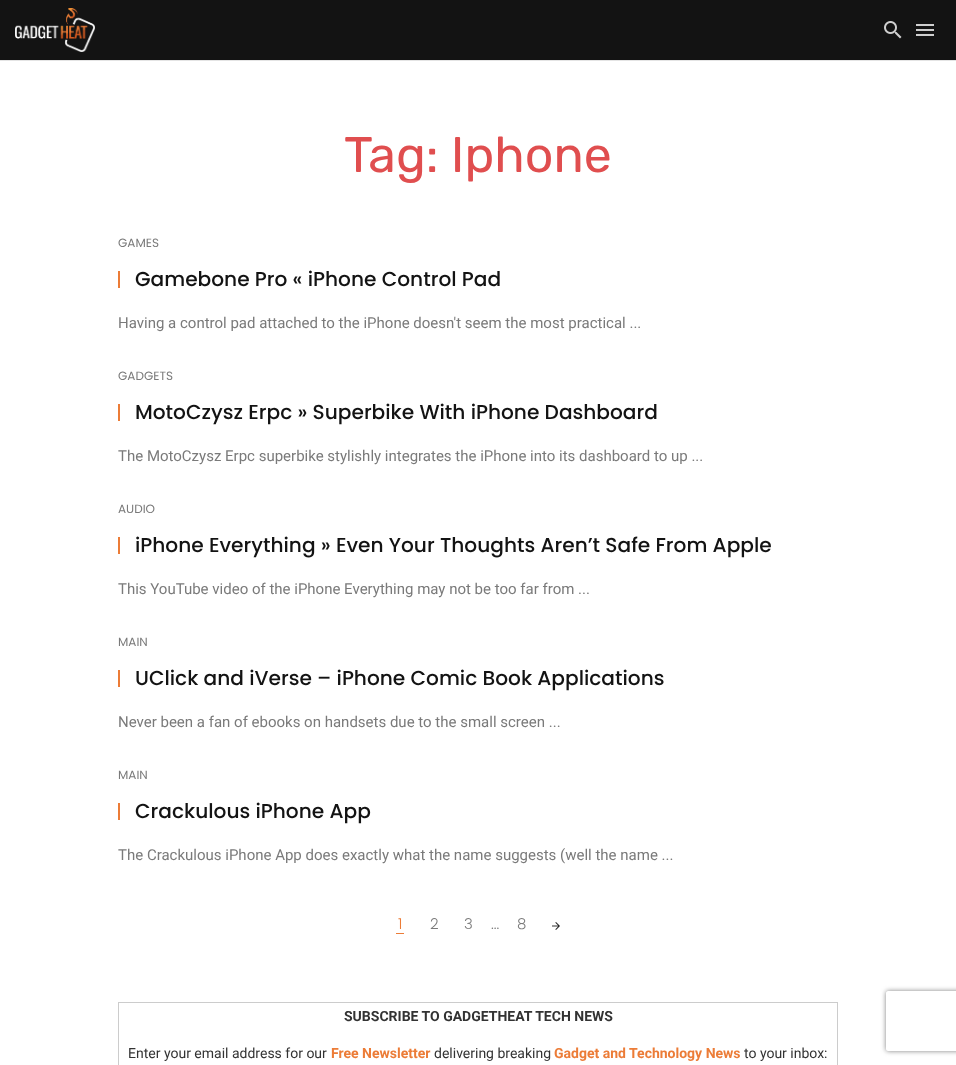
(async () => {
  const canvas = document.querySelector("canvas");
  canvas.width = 956;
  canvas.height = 1065;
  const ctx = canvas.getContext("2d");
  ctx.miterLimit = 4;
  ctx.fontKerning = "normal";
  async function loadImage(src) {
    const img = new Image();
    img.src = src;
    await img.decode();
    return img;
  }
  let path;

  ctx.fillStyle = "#ffffff";
  ctx.fillRect(0, 0, 956, 1065);
  ctx.fillStyle = "#131313";
  ctx.fillRect(0, 0, 956, 60);
  ctx.fillStyle = "#e4e4e4";
  ctx.fillRect(0, 60, 956, 1);
  ctx.drawImage(await loadImage("img/1.png"), 15, 8, 80, 44);
  ctx.drawImage(await loadImage("img/2.png"), 884, 21, 18, 18);
  ctx.drawImage(await loadImage("img/3.png"), 916, 24, 18, 12);
  for (const [x, y, w, h, color] of [
    [118, 271, 2, 17, "#ec7c37"],
    [118, 404, 2, 17, "#ec7c37"],
    [118, 537, 2, 17, "#ec7c37"],
    [118, 670, 2, 17, "#ec7c37"],
    [118, 803, 2, 17, "#ec7c37"],
    [396, 933, 8, 1, "#ec7c37"],
  ]) {
    ctx.fillStyle = color;
    ctx.fillRect(x, y, w, h);
  }
  ctx.drawImage(await loadImage("img/4.png"), 552, 922, 8, 8);
  ctx.strokeStyle = "#cccccc";
  ctx.strokeRect(118.5, 1002.5, 719, 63);
  ctx.save();
  path = new Path2D("M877 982H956V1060H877ZM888 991H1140C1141 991 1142 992 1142 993V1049C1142 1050 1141 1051 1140 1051H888C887 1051 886 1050 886 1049V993C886 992 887 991 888 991Z");
  ctx.clip(path, "evenodd");
  ctx.fillStyle = "#808080";
  ctx.filter = "blur(2.5px)";
  ctx.beginPath();
  ctx.roundRect(886, 991, 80, 60, 2);
  ctx.fill();
  ctx.filter = "none";
  ctx.restore();
  ctx.font = "50px Rubik";
  ctx.fillStyle = "#e04e4f";
  ctx.fillText("Tag: Iphone", 344, 172);
  ctx.font = "12px Poppins";
  ctx.fillStyle = "#7a7a7a";
  ctx.fillText("GAMES", 118, 247);
  ctx.font = "500 20.15px Poppins";
  ctx.fillStyle = "#131313";
  ctx.fillText("Gamebone Pro « iPhone Control Pad", 135, 286);
  ctx.font = "15px Roboto";
  ctx.fillStyle = "#7a7a7a";
  ctx.fillText("Having a control pad attached to the iPhone doesn't seem the most practical ...", 118, 328);
  ctx.font = "12px Poppins";
  ctx.fillText("GADGETS", 118, 380);
  ctx.font = "500 20.15px Poppins";
  ctx.fillStyle = "#131313";
  ctx.fillText("MotoCzysz Erpc » Superbike With iPhone Dashboard", 135, 419);
  ctx.font = "15px Roboto";
  ctx.fillStyle = "#7a7a7a";
  ctx.fillText("The MotoCzysz Erpc superbike stylishly integrates the iPhone into its dashboard to up ...", 118, 461);
  ctx.font = "12px Poppins";
  ctx.fillText("AUDIO", 118, 513);
  ctx.font = "500 20.15px Poppins";
  ctx.fillStyle = "#131313";
  ctx.fillText("iPhone Everything » Even Your Thoughts Aren’t Safe From Apple", 135, 552);
  ctx.font = "15px Roboto";
  ctx.fillStyle = "#7a7a7a";
  ctx.fillText("This YouTube video of the iPhone Everything may not be too far from ...", 118, 594);
  ctx.font = "12px Poppins";
  ctx.fillText("MAIN", 118, 646);
  ctx.font = "500 20.15px Poppins";
  ctx.fillStyle = "#131313";
  ctx.fillText("UClick and iVerse – iPhone Comic Book Applications", 135, 685);
  ctx.font = "15px Roboto";
  ctx.fillStyle = "#7a7a7a";
  ctx.fillText("Never been a fan of ebooks on handsets due to the small screen ...", 118, 727);
  ctx.font = "12px Poppins";
  ctx.fillText("MAIN", 118, 779);
  ctx.font = "500 20.15px Poppins";
  ctx.fillStyle = "#131313";
  ctx.fillText("Crackulous iPhone App", 135, 818);
  ctx.font = "15px Roboto";
  ctx.fillStyle = "#7a7a7a";
  ctx.fillText("The Crackulous iPhone App does exactly what the name suggests (well the name ...", 118, 860);
  ctx.font = "300 15px Poppins";
  ctx.fillStyle = "#ec7c37";
  ctx.fillText("1", 398, 929);
  ctx.fillStyle = "#7a7a7a";
  for (const [text, x, y] of [
    ["2", 430, 929],
    ["3", 464, 929],
    ["...", 491, 929],
    ["8", 517, 929],
  ]) {
    ctx.fillText(text, x, y);
  }
  ctx.font = "bold 14px Roboto";
  ctx.fillStyle = "#333333";
  ctx.fillText("SUBSCRIBE TO GADGETHEAT TECH NEWS", 344, 1021);
  ctx.font = "14px Roboto";
  ctx.fillText("Enter your email address for our", 128, 1058);
  ctx.font = "bold 14px Roboto";
  ctx.fillStyle = "#ec7c37";
  ctx.fillText("Free Newsletter", 331, 1058);
  ctx.font = "14px Roboto";
  ctx.fillStyle = "#333333";
  ctx.fillText("delivering breaking", 434, 1058);
  ctx.font = "bold 14px Roboto";
  ctx.fillStyle = "#ec7c37";
  ctx.fillText("Gadget and Technology News", 554, 1058);
  ctx.font = "14px Roboto";
  ctx.fillStyle = "#333333";
  ctx.fillText("to your inbox:", 744, 1058);
})();
